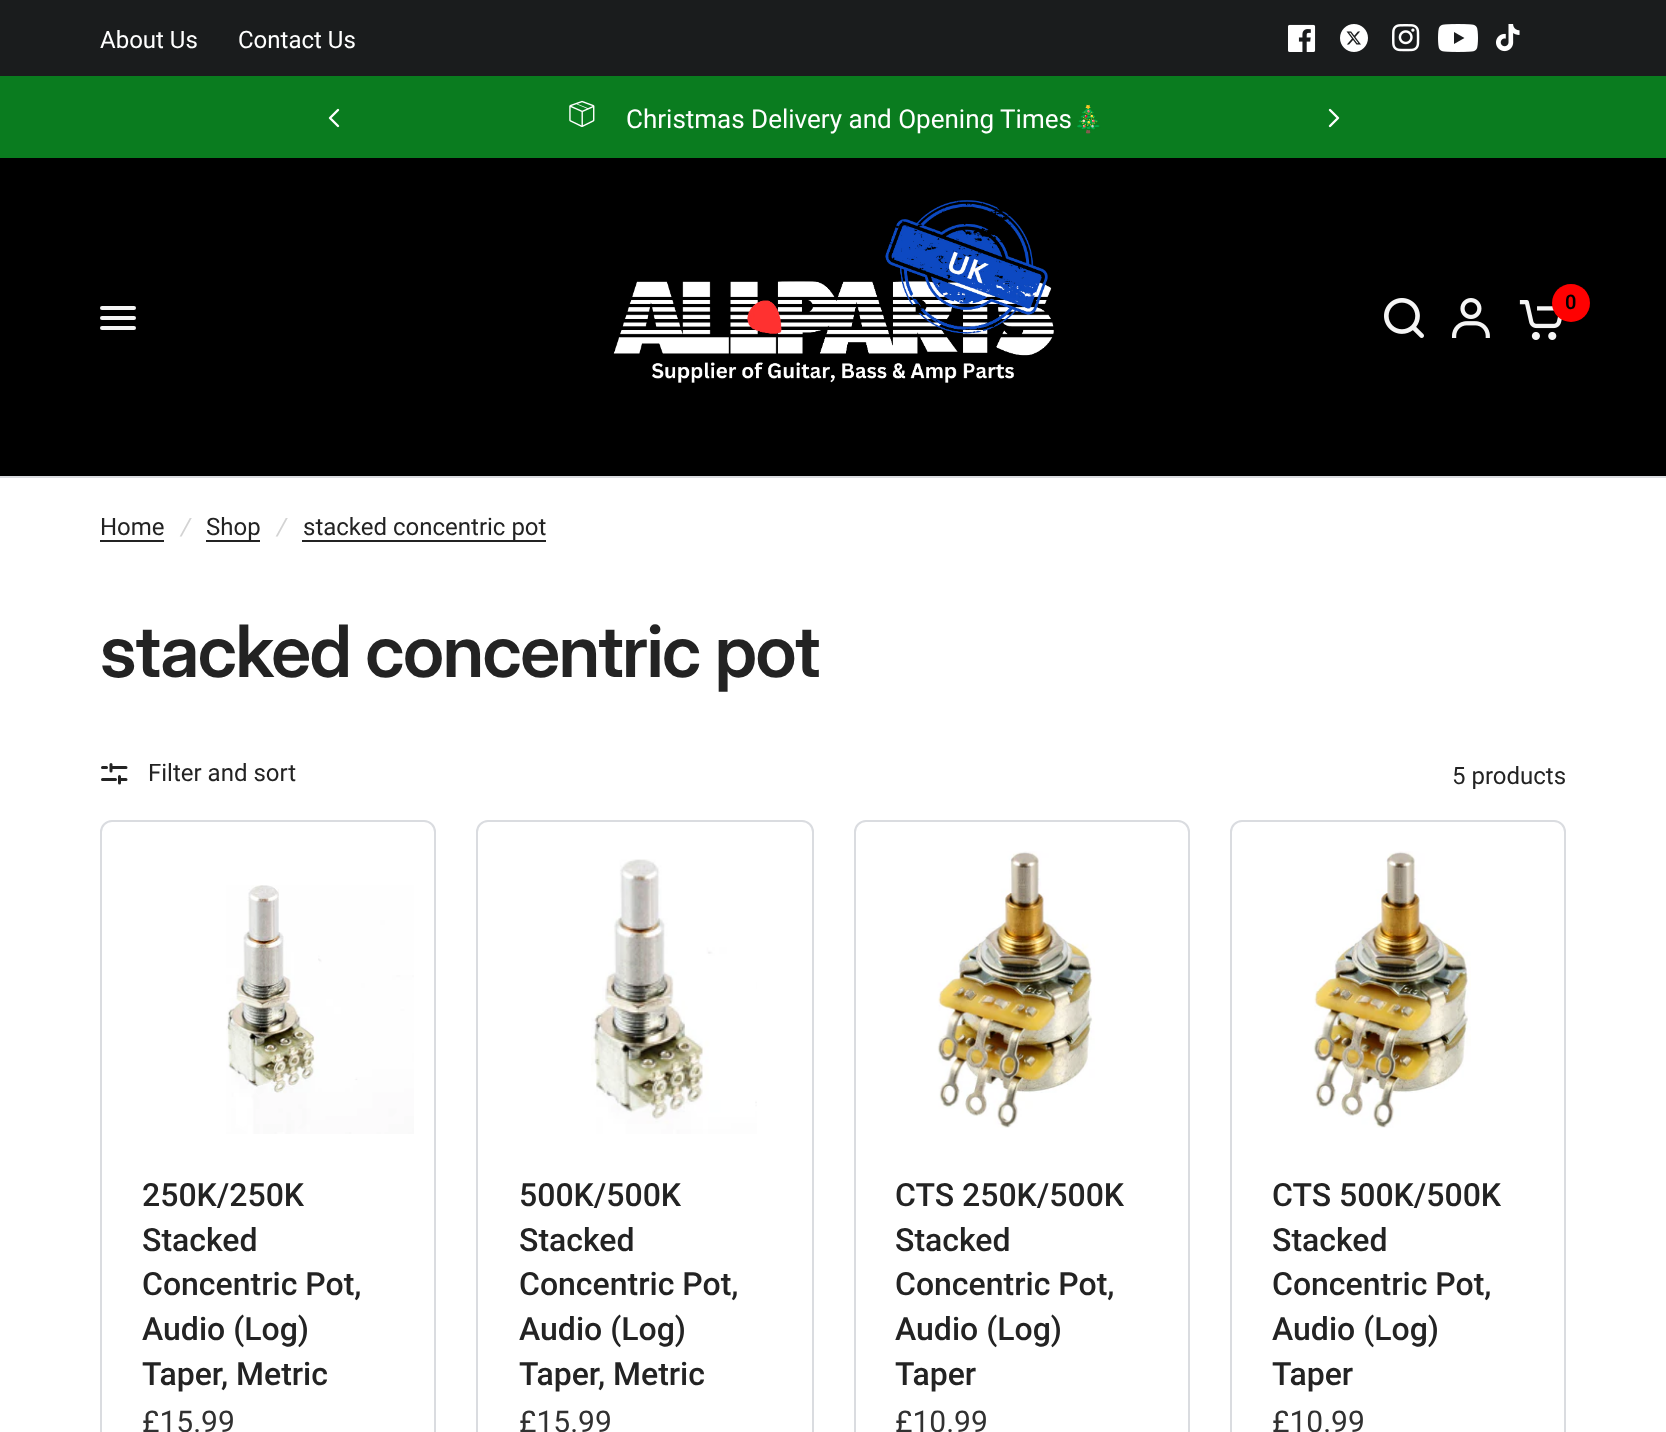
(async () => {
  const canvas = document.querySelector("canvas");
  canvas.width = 1666;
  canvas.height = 1432;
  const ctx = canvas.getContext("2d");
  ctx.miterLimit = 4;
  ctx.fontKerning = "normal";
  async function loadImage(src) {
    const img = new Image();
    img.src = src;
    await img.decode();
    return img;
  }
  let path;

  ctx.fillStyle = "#ffffff";
  ctx.fillRect(0, 0, 1666, 1432);
  ctx.fillStyle = "#1a1c1d";
  ctx.fillRect(0, 0, 1666, 76);
  ctx.drawImage(await loadImage("img/1.png"), 1288, 24, 28, 28);
  ctx.drawImage(await loadImage("img/2.png"), 1340, 24, 28, 28);
  ctx.drawImage(await loadImage("img/3.png"), 1392, 24, 28, 28);
  ctx.drawImage(await loadImage("img/4.png"), 1438, 24, 40, 28);
  ctx.drawImage(await loadImage("img/5.png"), 1496, 24, 24, 28);
  ctx.fillStyle = "#0a7c1f";
  ctx.fillRect(0, 76, 1666, 82);
  path = new Path2D("M338 110L330 118L338 126");
  ctx.strokeStyle = "#ffffff";
  ctx.lineWidth = 2.4;
  ctx.lineCap = "round";
  ctx.lineJoin = "round";
  ctx.stroke(path);
  ctx.drawImage(await loadImage("img/6.png"), 569, 100, 26, 27);
  path = new Path2D("M1330 110L1338 118L1330 126");
  ctx.stroke(path);
  ctx.fillStyle = "#000000";
  ctx.fillRect(0, 158, 1666, 318);
  ctx.drawImage(await loadImage("img/7.png"), 613, 200, 441, 183);
  ctx.drawImage(await loadImage("img/8.png"), 1384, 298, 40, 40);
  ctx.drawImage(await loadImage("img/9.png"), 1452, 298, 38, 40);
  ctx.drawImage(await loadImage("img/10.png"), 1519, 300, 43, 40);
  ctx.fillStyle = "#ff0101";
  ctx.beginPath();
  ctx.arc(1571, 303, 19, 0, Math.PI * 2);
  ctx.fill();
  ctx.fillStyle = "#f5f5f5";
  ctx.beginPath();
  ctx.roundRect(100, 306, 36, 4, 2);
  ctx.fill();
  ctx.beginPath();
  ctx.roundRect(100, 316, 36, 4, 2);
  ctx.fill();
  ctx.beginPath();
  ctx.roundRect(100, 326, 36, 4, 2);
  ctx.fill();
  for (const [x, y, w, h, color] of [
    [0, 476, 1666, 2, "#dadce0"],
    [100, 540, 64, 2, "#232323"],
    [206, 540, 54, 2, "#232323"],
    [302, 540, 244, 2, "#232323"],
  ]) {
    ctx.fillStyle = color;
    ctx.fillRect(x, y, w, h);
  }
  path = new Path2D("M115.5 779.5H102.5M126 779.5H119.5M106.5 767.5H102.5M126 767.5H111M111 764.5V771M119.5 783V776.5");
  ctx.strokeStyle = "#232323";
  ctx.lineWidth = 3;
  ctx.stroke(path);
  ctx.beginPath();
  ctx.roundRect(101, 821, 334, 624, 11);
  ctx.strokeStyle = "#dadce0";
  ctx.lineWidth = 2;
  ctx.lineJoin = "miter";
  ctx.stroke();
  ctx.drawImage(await loadImage("img/11.png"), 226, 885, 188, 249);
  ctx.beginPath();
  ctx.roundRect(477, 821, 336, 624, 11);
  ctx.stroke();
  ctx.drawImage(await loadImage("img/12.png"), 591, 859, 166, 275);
  ctx.beginPath();
  ctx.roundRect(855, 821, 334, 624, 11);
  ctx.stroke();
  ctx.drawImage(await loadImage("img/13.png"), 937, 851, 158, 277);
  ctx.beginPath();
  ctx.roundRect(1231, 821, 334, 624, 11);
  ctx.stroke();
  ctx.drawImage(await loadImage("img/14.png"), 1313, 851, 158, 277);
  ctx.font = "24px Roboto";
  ctx.fillStyle = "#ffffff";
  ctx.fillText("About Us", 100, 48);
  ctx.fillText("Contact Us", 238, 48);
  ctx.font = "26px Roboto";
  ctx.fillText("Christmas Delivery and Opening Times", 626, 128);
  ctx.font = "26px Noto Color Emoji";
  ctx.fillText("🎄", 1072, 128);
  ctx.font = "600 20px Roboto";
  ctx.fillStyle = "#000000";
  ctx.fillText("0", 1565, 309);
  ctx.font = "24px Roboto";
  ctx.fillStyle = "#232323";
  ctx.fillText("Home", 100, 535);
  ctx.font = "italic 24px Roboto";
  ctx.fillStyle = "#d3d3d3";
  ctx.fillText("/", 181, 535);
  ctx.font = "24px Roboto";
  ctx.fillStyle = "#232323";
  ctx.fillText("Shop", 206, 535);
  ctx.font = "italic 24px Roboto";
  ctx.fillStyle = "#d3d3d3";
  ctx.fillText("/", 277, 535);
  ctx.font = "24px Roboto";
  ctx.fillStyle = "#232323";
  ctx.fillText("stacked concentric pot", 303, 535);
  ctx.letterSpacing = "-1.4px";
  ctx.font = "600 72px Inter";
  ctx.fillText("stacked concentric pot", 100, 677);
  ctx.letterSpacing = "0px";
  ctx.font = "24px Roboto";
  ctx.fillText("Filter and sort", 148, 781);
  ctx.fillText("5 products", 1452, 784);
  ctx.font = "500 32px Roboto";
  for (const [text, x, y] of [
    ["250K/250K", 142, 1206],
    ["Stacked", 142, 1251],
    ["Concentric Pot,", 142, 1295],
    ["Audio (Log)", 142, 1340],
    ["Taper, Metric", 142, 1385],
  ]) {
    ctx.fillText(text, x, y);
  }
  ctx.font = "30px Roboto";
  ctx.fillStyle = "#313131";
  ctx.fillText("£15.99", 142, 1432);
  ctx.font = "500 32px Roboto";
  ctx.fillStyle = "#232323";
  for (const [text, x, y] of [
    ["500K/500K", 519, 1206],
    ["Stacked", 519, 1251],
    ["Concentric Pot,", 519, 1295],
    ["Audio (Log)", 519, 1340],
    ["Taper, Metric", 519, 1385],
  ]) {
    ctx.fillText(text, x, y);
  }
  ctx.font = "30px Roboto";
  ctx.fillStyle = "#313131";
  ctx.fillText("£15.99", 519, 1432);
  ctx.font = "500 32px Roboto";
  ctx.fillStyle = "#232323";
  for (const [text, x, y] of [
    ["CTS 250K/500K", 895, 1206],
    ["Stacked", 895, 1251],
    ["Concentric Pot,", 895, 1295],
    ["Audio (Log)", 895, 1340],
    ["Taper", 895, 1385],
  ]) {
    ctx.fillText(text, x, y);
  }
  ctx.font = "30px Roboto";
  ctx.fillStyle = "#313131";
  ctx.fillText("£10.99", 895, 1432);
  ctx.font = "500 32px Roboto";
  ctx.fillStyle = "#232323";
  for (const [text, x, y] of [
    ["CTS 500K/500K", 1272, 1206],
    ["Stacked", 1272, 1251],
    ["Concentric Pot,", 1272, 1295],
    ["Audio (Log)", 1272, 1340],
    ["Taper", 1272, 1385],
  ]) {
    ctx.fillText(text, x, y);
  }
  ctx.font = "30px Roboto";
  ctx.fillStyle = "#313131";
  ctx.fillText("£10.99", 1272, 1432);
})();
